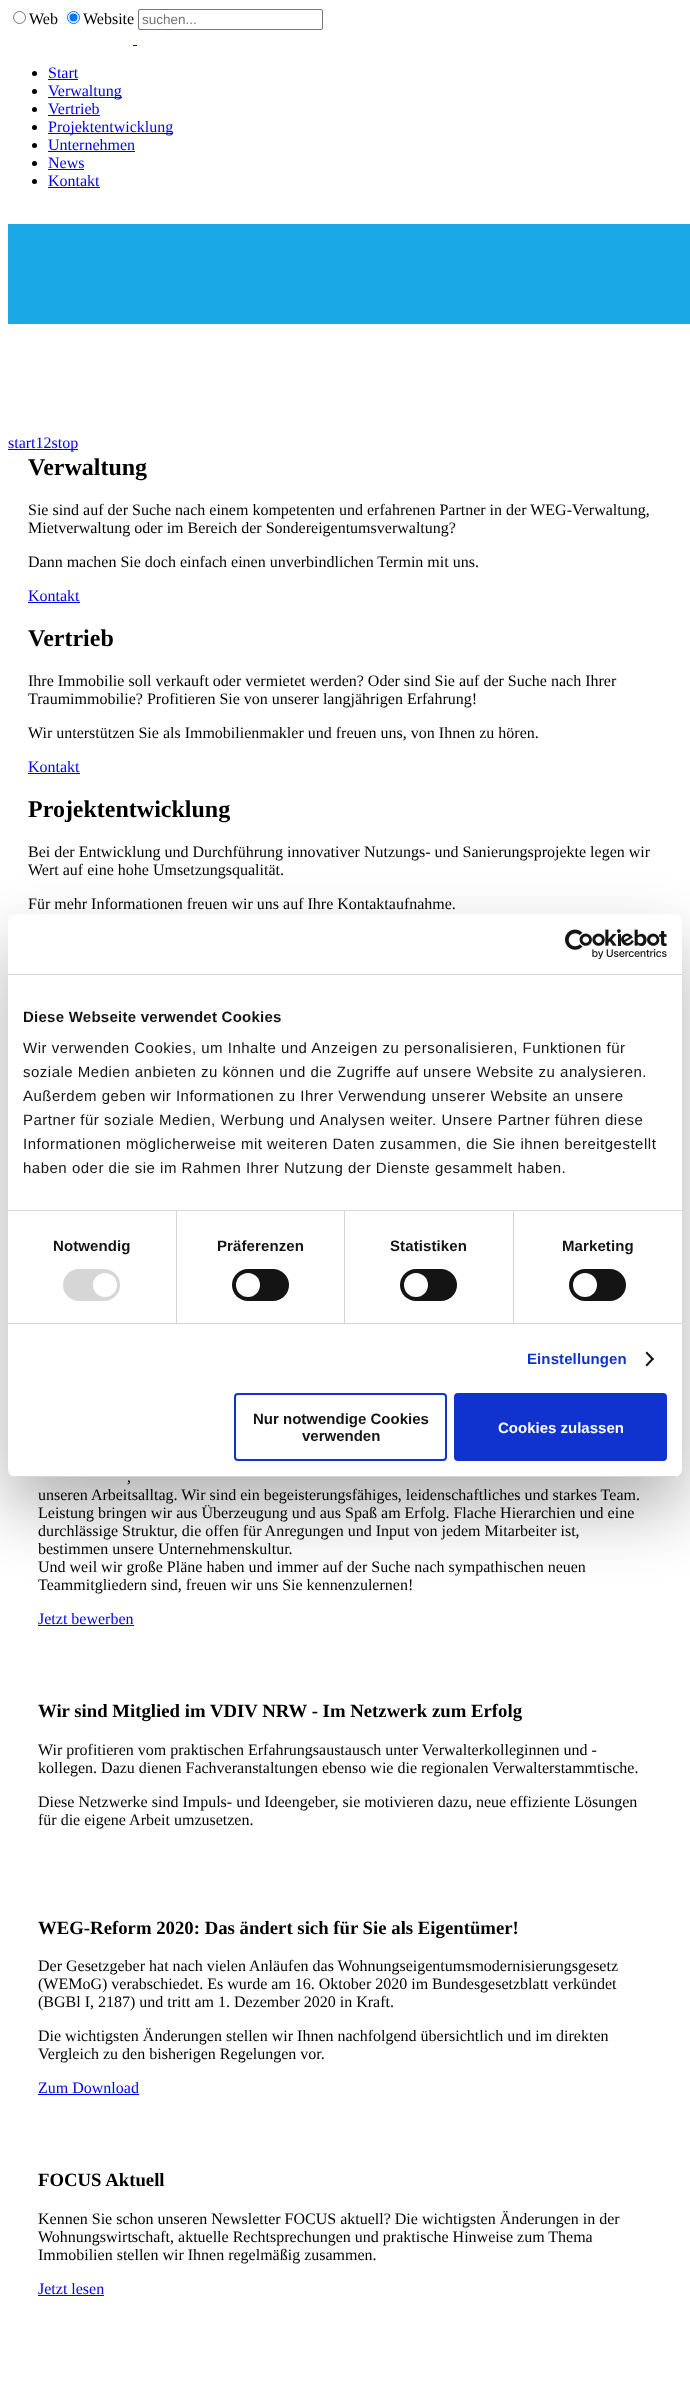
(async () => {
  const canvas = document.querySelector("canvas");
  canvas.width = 690;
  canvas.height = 2391;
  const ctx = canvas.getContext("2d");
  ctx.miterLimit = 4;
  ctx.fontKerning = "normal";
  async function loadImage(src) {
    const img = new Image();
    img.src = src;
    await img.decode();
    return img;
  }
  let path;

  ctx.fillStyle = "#ffffff";
  ctx.fillRect(0, 0, 690, 2391);
  ctx.beginPath();
  ctx.arc(19.5, 17.5, 6, 0, Math.PI * 2);
  ctx.strokeStyle = "#767676";
  ctx.stroke();
  ctx.beginPath();
  ctx.arc(73.5, 17.5, 6, 0, Math.PI * 2);
  ctx.strokeStyle = "#0075ff";
  ctx.stroke();
  ctx.fillStyle = "#0075ff";
  ctx.beginPath();
  ctx.arc(73.5, 17.5, 4, 0, Math.PI * 2);
  ctx.fill();
  ctx.beginPath();
  ctx.roundRect(138.5, 9.5, 184, 20, 1.5);
  ctx.strokeStyle = "#767676";
  ctx.stroke();
  ctx.fillStyle = "#0000ee";
  ctx.fillRect(133, 45, 4, 1);
  ctx.fillStyle = "#000000";
  ctx.beginPath();
  ctx.arc(34.5, 73.5, 2.5, 0, Math.PI * 2);
  ctx.fill();
  ctx.fillStyle = "#0000ee";
  ctx.fillRect(48, 79, 30, 1);
  ctx.fillStyle = "#000000";
  ctx.beginPath();
  ctx.arc(34.5, 91.5, 2.5, 0, Math.PI * 2);
  ctx.fill();
  ctx.fillStyle = "#0000ee";
  ctx.fillRect(48, 97, 74, 1);
  ctx.fillStyle = "#000000";
  ctx.beginPath();
  ctx.arc(34.5, 109.5, 2.5, 0, Math.PI * 2);
  ctx.fill();
  ctx.fillStyle = "#0000ee";
  ctx.fillRect(48, 115, 52, 1);
  ctx.fillStyle = "#000000";
  ctx.beginPath();
  ctx.arc(34.5, 127.5, 2.5, 0, Math.PI * 2);
  ctx.fill();
  ctx.fillStyle = "#0000ee";
  ctx.fillRect(48, 133, 125, 1);
  ctx.fillStyle = "#000000";
  ctx.beginPath();
  ctx.arc(34.5, 145.5, 2.5, 0, Math.PI * 2);
  ctx.fill();
  ctx.fillStyle = "#0000ee";
  ctx.fillRect(48, 151, 87, 1);
  ctx.fillStyle = "#000000";
  ctx.beginPath();
  ctx.arc(34.5, 163.5, 2.5, 0, Math.PI * 2);
  ctx.fill();
  ctx.fillStyle = "#0000ee";
  ctx.fillRect(48, 169, 36, 1);
  ctx.fillStyle = "#000000";
  ctx.beginPath();
  ctx.arc(34.5, 181.5, 2.5, 0, Math.PI * 2);
  ctx.fill();
  for (const [x, y, w, h, color] of [
    [48, 187, 52, 1, "#0000ee"],
    [8, 224, 682, 100, "#1aa9e6"],
    [8, 449, 70, 1, "#0000ee"],
    [28, 602, 52, 1, "#0000ee"],
    [28, 773, 52, 1, "#0000ee"],
    [38, 1625, 96, 1, "#0000ee"],
    [38, 2094, 101, 1, "#0000ee"],
    [38, 2295, 66, 1, "#0000ee"],
  ]) {
    ctx.fillStyle = color;
    ctx.fillRect(x, y, w, h);
  }
  ctx.fillStyle = "rgba(0, 0, 0, 0.3)";
  ctx.filter = "blur(34px)";
  ctx.beginPath();
  ctx.roundRect(8, 946, 674, 563, 8);
  ctx.fill();
  ctx.filter = "none";
  ctx.fillStyle = "#ffffff";
  ctx.beginPath();
  ctx.roundRect(8, 914, 674, 563, 8);
  ctx.fill();
  ctx.fillStyle = "#d6d6d6";
  ctx.fillRect(8, 974, 674, 1);
  ctx.drawImage(await loadImage("img/1.png"), 565, 929, 102, 30);
  for (const [x, y, w, h, color] of [
    [8, 1210, 674, 1, "#d6d6d6"],
    [8, 1323, 674, 1, "#d6d6d6"],
    [176, 1211, 1, 112, "#d6d6d6"],
  ]) {
    ctx.fillStyle = color;
    ctx.fillRect(x, y, w, h);
  }
  ctx.beginPath();
  ctx.roundRect(63, 1269, 57, 32, 16);
  ctx.fill();
  ctx.fillStyle = "#ffffff";
  ctx.beginPath();
  ctx.arc(105, 1285, 12, 0, Math.PI * 2);
  ctx.fill();
  ctx.fillStyle = "#d6d6d6";
  ctx.fillRect(344, 1211, 1, 112);
  ctx.fillStyle = "#141414";
  ctx.beginPath();
  ctx.roundRect(232, 1269, 57, 32, 16);
  ctx.fill();
  ctx.fillStyle = "#ffffff";
  ctx.beginPath();
  ctx.arc(248, 1285, 12, 0, Math.PI * 2);
  ctx.fill();
  ctx.fillStyle = "#d6d6d6";
  ctx.fillRect(513, 1211, 1, 112);
  ctx.fillStyle = "#141414";
  ctx.beginPath();
  ctx.roundRect(400, 1269, 57, 32, 16);
  ctx.fill();
  ctx.fillStyle = "#ffffff";
  ctx.beginPath();
  ctx.arc(416, 1285, 12, 0, Math.PI * 2);
  ctx.fill();
  ctx.fillStyle = "#141414";
  ctx.beginPath();
  ctx.roundRect(569, 1269, 57, 32, 16);
  ctx.fill();
  ctx.fillStyle = "#ffffff";
  ctx.beginPath();
  ctx.arc(585, 1285, 12, 0, Math.PI * 2);
  ctx.fill();
  ctx.fillStyle = "#141414";
  path = new Path2D("M647 1351.5L654 1359L652.5 1360.5L645.5 1353Z");
  ctx.fill(path);
  path = new Path2D("M652.5 1357.5L654 1359L647 1366.5L645.5 1365Z");
  ctx.fill(path);
  ctx.save();
  ctx.beginPath();
  ctx.roundRect(8, 914, 674, 563, 8);
  ctx.clip();
  ctx.fillStyle = "#d6d6d6";
  ctx.fillRect(8, 1476, 674, 1);
  ctx.restore();
  ctx.beginPath();
  ctx.roundRect(235, 1394, 211, 66, 3);
  ctx.strokeStyle = "#1032cf";
  ctx.lineWidth = 2;
  ctx.stroke();
  ctx.fillStyle = "#1032cf";
  ctx.beginPath();
  ctx.roundRect(455, 1394, 211, 66, 3);
  ctx.fill();
  ctx.stroke();
  ctx.font = "16px Liberation Serif";
  ctx.fillStyle = "#000000";
  ctx.fillText("Web", 29, 24);
  ctx.fillText("Website", 83, 24);
  ctx.font = "13.5px Liberation Sans";
  ctx.fillStyle = "#757575";
  ctx.fillText("suchen...", 142, 24);
  ctx.font = "16px Liberation Serif";
  ctx.fillStyle = "#0000ee";
  for (const [text, x, y] of [
    ["Start", 48, 78],
    ["Verwaltung", 48, 96],
    ["Vertrieb", 48, 114],
    ["Projektentwicklung", 48, 132],
    ["Unternehmen", 48, 150],
    ["News", 48, 168],
    ["Kontakt", 48, 186],
    ["start12stop", 8, 448],
  ]) {
    ctx.fillText(text, x, y);
  }
  ctx.font = "bold 24px Liberation Serif";
  ctx.fillStyle = "#000000";
  ctx.fillText("Verwaltung", 28, 475);
  ctx.font = "16px Liberation Serif";
  for (const [text, x, y] of [
    ["Sie sind auf der Suche nach einem kompetenten und erfahrenen Partner in der WEG-Verwaltung,", 28, 515],
    ["Mietverwaltung oder im Bereich der Sondereigentumsverwaltung?", 28, 533],
    ["Dann machen Sie doch einfach einen unverbindlichen Termin mit uns.", 28, 567],
  ]) {
    ctx.fillText(text, x, y);
  }
  ctx.fillStyle = "#0000ee";
  ctx.fillText("Kontakt", 28, 601);
  ctx.font = "bold 24px Liberation Serif";
  ctx.fillStyle = "#000000";
  ctx.fillText("Vertrieb", 28, 646);
  ctx.font = "16px Liberation Serif";
  for (const [text, x, y] of [
    ["Ihre Immobilie soll verkauft oder vermietet werden? Oder sind Sie auf der Suche nach Ihrer", 28, 686],
    ["Traumimmobilie? Profitieren Sie von unserer langjährigen Erfahrung!", 28, 704],
    ["Wir unterstützen Sie als Immobilienmakler und freuen uns, von Ihnen zu hören.", 28, 738],
  ]) {
    ctx.fillText(text, x, y);
  }
  ctx.fillStyle = "#0000ee";
  ctx.fillText("Kontakt", 28, 772);
  ctx.font = "bold 24px Liberation Serif";
  ctx.fillStyle = "#000000";
  ctx.fillText("Projektentwicklung", 28, 817);
  ctx.font = "16px Liberation Serif";
  for (const [text, x, y] of [
    ["Bei der Entwicklung und Durchführung innovativer Nutzungs- und Sanierungsprojekte legen wir", 28, 857],
    ["Wert auf eine hohe Umsetzungsqualität.", 28, 875],
    ["Für mehr Informationen freuen wir uns auf Ihre Kontaktaufnahme.", 28, 909],
    [",", 127, 1482],
    ["unseren Arbeitsalltag. Wir sind ein begeisterungsfähiges, leidenschaftliches und starkes Team.", 38, 1500],
    ["Leistung bringen wir aus Überzeugung und aus Spaß am Erfolg. Flache Hierarchien und eine", 38, 1518],
    ["durchlässige Struktur, die offen für Anregungen und Input von jedem Mitarbeiter ist,", 38, 1536],
    ["bestimmen unsere Unternehmenskultur.", 38, 1554],
    ["Und weil wir große Pläne haben und immer auf der Suche nach sympathischen neuen", 38, 1572],
    ["Teammitgliedern sind, freuen wir uns Sie kennenzulernen!", 38, 1590],
  ]) {
    ctx.fillText(text, x, y);
  }
  ctx.fillStyle = "#0000ee";
  ctx.fillText("Jetzt bewerben", 38, 1624);
  ctx.font = "bold 18.75px Liberation Serif";
  ctx.fillStyle = "#000000";
  ctx.fillText("Wir sind Mitglied im VDIV NRW - Im Netzwerk zum Erfolg", 38, 1717);
  ctx.font = "16px Liberation Serif";
  for (const [text, x, y] of [
    ["Wir profitieren vom praktischen Erfahrungsaustausch unter Verwalterkolleginnen und -", 38, 1755],
    ["kollegen. Dazu dienen Fachveranstaltungen ebenso wie die regionalen Verwalterstammtische.", 38, 1773],
    ["Diese Netzwerke sind Impuls- und Ideengeber, sie motivieren dazu, neue effiziente Lösungen", 38, 1807],
    ["für die eigene Arbeit umzusetzen.", 38, 1825],
  ]) {
    ctx.fillText(text, x, y);
  }
  ctx.font = "bold 18.75px Liberation Serif";
  ctx.fillText("WEG-Reform 2020: Das ändert sich für Sie als Eigentümer!", 38, 1934);
  ctx.font = "16px Liberation Serif";
  for (const [text, x, y] of [
    ["Der Gesetzgeber hat nach vielen Anläufen das Wohnungseigentumsmodernisierungsgesetz", 38, 1971],
    ["(WEMoG) verabschiedet. Es wurde am 16. Oktober 2020 im Bundesgesetzblatt verkündet", 38, 1989],
    ["(BGBl I, 2187) und tritt am 1. Dezember 2020 in Kraft.", 38, 2007],
    ["Die wichtigsten Änderungen stellen wir Ihnen nachfolgend übersichtlich und im direkten", 38, 2041],
    ["Vergleich zu den bisherigen Regelungen vor.", 38, 2059],
  ]) {
    ctx.fillText(text, x, y);
  }
  ctx.fillStyle = "#0000ee";
  ctx.fillText("Zum Download", 38, 2093);
  ctx.font = "bold 18.75px Liberation Serif";
  ctx.fillStyle = "#000000";
  ctx.fillText("FOCUS Aktuell", 38, 2186);
  ctx.font = "16px Liberation Serif";
  for (const [text, x, y] of [
    ["Kennen Sie schon unseren Newsletter FOCUS aktuell? Die wichtigsten Änderungen in der", 38, 2224],
    ["Wohnungswirtschaft, aktuelle Rechtsprechungen und praktische Hinweise zum Thema", 38, 2242],
    ["Immobilien stellen wir Ihnen regelmäßig zusammen.", 38, 2260],
  ]) {
    ctx.fillText(text, x, y);
  }
  ctx.fillStyle = "#0000ee";
  ctx.fillText("Jetzt lesen", 38, 2294);
  ctx.letterSpacing = "0.25px";
  ctx.font = "bold 15px Liberation Sans";
  ctx.fillStyle = "#141414";
  ctx.fillText("Diese Webseite verwendet Cookies", 23, 1022);
  ctx.letterSpacing = "0.5px";
  ctx.font = "15px Liberation Sans";
  for (const [text, x, y] of [
    ["Wir verwenden Cookies, um Inhalte und Anzeigen zu personalisieren, Funktionen für", 23, 1053],
    ["soziale Medien anbieten zu können und die Zugriffe auf unsere Website zu analysieren.", 23, 1077],
    ["Außerdem geben wir Informationen zu Ihrer Verwendung unserer Website an unsere", 23, 1101],
    ["Partner für soziale Medien, Werbung und Analysen weiter. Unsere Partner führen diese", 23, 1125],
    ["Informationen möglicherweise mit weiteren Daten zusammen, die Sie ihnen bereitgestellt", 23, 1149],
    ["haben oder die sie im Rahmen Ihrer Nutzung der Dienste gesammelt haben.", 23, 1173],
  ]) {
    ctx.fillText(text, x, y);
  }
  ctx.letterSpacing = "0.1px";
  ctx.font = "bold 15px Liberation Sans";
  for (const [text, x, y] of [
    ["Notwendig", 53, 1251],
    ["Präferenzen", 217, 1251],
    ["Statistiken", 390, 1251],
    ["Marketing", 562, 1251],
  ]) {
    ctx.fillText(text, x, y);
  }
  ctx.fillStyle = "#1032cf";
  ctx.fillText("Einstellungen", 527, 1364);
  ctx.letterSpacing = "0px";
  ctx.fillStyle = "#141414";
  ctx.fillText("Nur notwendige Cookies", 253, 1424);
  ctx.fillText("verwenden", 302, 1441);
  ctx.fillStyle = "#ffffff";
  ctx.fillText("Cookies zulassen", 498, 1433);
})();
